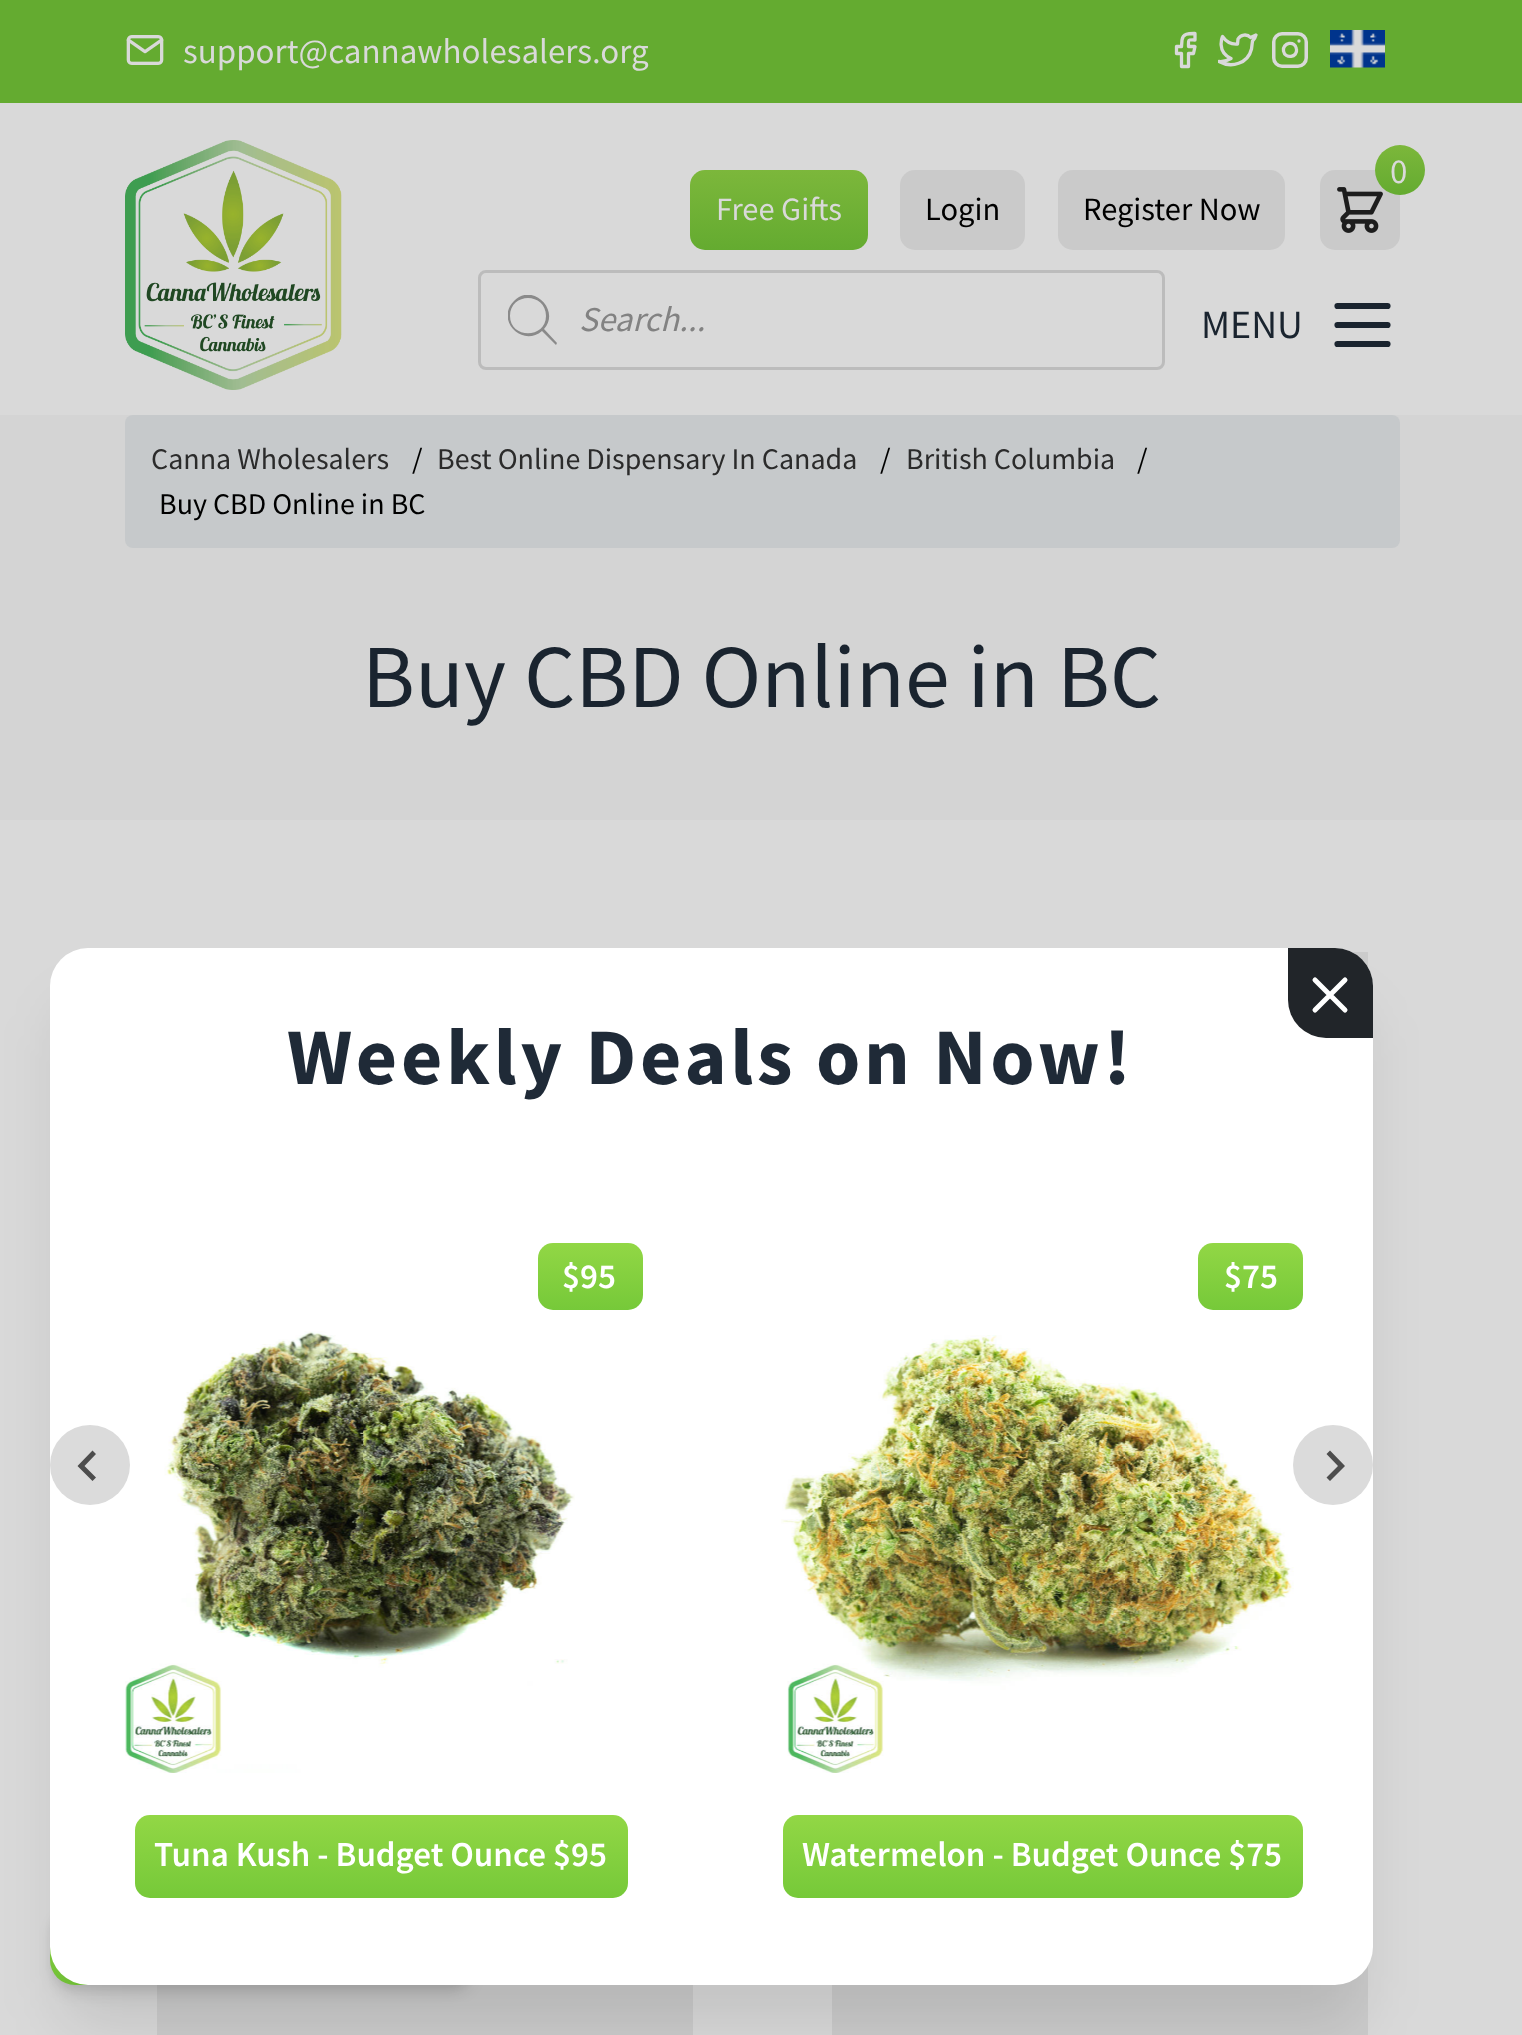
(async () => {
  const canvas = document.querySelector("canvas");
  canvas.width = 1522;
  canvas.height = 2035;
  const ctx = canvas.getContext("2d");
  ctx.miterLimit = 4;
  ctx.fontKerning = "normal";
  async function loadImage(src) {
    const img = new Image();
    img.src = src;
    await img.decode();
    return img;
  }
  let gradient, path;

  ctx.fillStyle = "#d9d9d9";
  ctx.fillRect(0, 0, 1522, 2035);
  ctx.fillStyle = "#64ab30";
  ctx.fillRect(0, 0, 1522, 103);
  ctx.drawImage(await loadImage("img/1.png"), 126, 35, 38, 30);
  path = new Path2D("M1195 33.5C1189.5 33.5 1183 33 1182 40L1181.5 46.5H1176.5V53.5H1181.5V66.5H1188.5V53.5H1193.5L1195 46.5H1188.5C1188.5 39 1187.5 40 1195 40Z");
  ctx.strokeStyle = "#d9d9d9";
  ctx.lineWidth = 3.3;
  ctx.lineCap = "round";
  ctx.lineJoin = "round";
  ctx.stroke(path);
  ctx.save();
  ctx.beginPath();
  ctx.rect(1218, 30, 40, 40);
  ctx.clip();
  path = new Path2D("M1256 35L1250.5 37.5C1247 33.5 1240.5 34.5 1238 39L1237.5 44C1231.5 44.5 1226 41.5 1222.5 36.5C1222.5 36.5 1216 51.5 1231 58.5C1227.5 60.5 1223.5 62 1219 61.5C1231.5 68.5 1248 63.5 1251.5 49L1252.5 41C1254 39.5 1255.5 37.5 1256 35Z");
  ctx.stroke(path);
  ctx.restore();
  ctx.beginPath();
  ctx.roundRect(1273.75, 33.75, 32.5, 32.5, 8.25);
  ctx.lineWidth = 3.5;
  ctx.lineJoin = "miter";
  ctx.stroke();
  path = new Path2D("M1296.5 49C1298 57.5 1285 59.5 1283.5 51C1282 42.5 1295.5 40 1296.5 49ZM1299 41H1299");
  ctx.lineWidth = 3.3;
  ctx.lineJoin = "round";
  ctx.stroke(path);
  ctx.drawImage(await loadImage("img/2.png"), 1330, 30, 55, 38);
  ctx.drawImage(await loadImage("img/3.png"), 125, 140, 217, 250);
  ctx.fillStyle = "#cacaca";
  ctx.beginPath();
  ctx.roundRect(1320, 170, 80, 80, 15);
  ctx.fill();
  ctx.drawImage(await loadImage("img/4.png"), 1337, 187, 46, 46);
  gradient = ctx.createLinearGradient(1400, 145, 1400, 195);
  gradient.addColorStop(0, "#7cb73b");
  gradient.addColorStop(1, "#64ab30");
  ctx.fillStyle = gradient;
  ctx.beginPath();
  ctx.arc(1400, 170, 25, 0, Math.PI * 2);
  ctx.fill();
  gradient = ctx.createLinearGradient(779, 170, 779, 250);
  gradient.addColorStop(0, "#7cb73b");
  gradient.addColorStop(1, "#64ab30");
  ctx.fillStyle = gradient;
  ctx.beginPath();
  ctx.roundRect(690, 170, 178, 80, 15);
  ctx.fill();
  ctx.fillStyle = "#cacaca";
  ctx.beginPath();
  ctx.roundRect(900, 170, 125, 80, 15);
  ctx.fill();
  ctx.beginPath();
  ctx.roundRect(1058, 170, 227, 80, 15);
  ctx.fill();
  ctx.beginPath();
  ctx.roundRect(479.5, 271.5, 684, 97, 6.5);
  ctx.strokeStyle = "#bcbcbc";
  ctx.lineWidth = 3;
  ctx.lineJoin = "miter";
  ctx.stroke();
  ctx.save();
  ctx.beginPath();
  ctx.rect(508, 295, 50, 50);
  ctx.clip();
  ctx.fillStyle = "#8a8a8a";
  path = new Path2D("M557 343L544 329C561 310 532 282 514 301C495 320 522 348 542 331L556 345ZM510 316C510 292 546 292 546 316C546 339 510 339 510 316Z");
  ctx.fill(path);
  ctx.restore();
  path = new Path2D("M1337.5 306H1387.5M1337.5 325H1387.5M1337.5 344H1387.5");
  ctx.strokeStyle = "#1a242f";
  ctx.lineWidth = 6.2;
  ctx.lineJoin = "round";
  ctx.stroke(path);
  ctx.fillStyle = "#d4d4d4";
  ctx.fillRect(0, 415, 1522, 405);
  ctx.fillStyle = "#c6c9cb";
  ctx.beginPath();
  ctx.roundRect(125, 415, 1275, 133, 8);
  ctx.fill();
  for (const [x, y, w, h, color] of [
    [1352, 952, 16, 16, "#cbcbcb"],
    [157, 1985, 536, 50, "#cbcbcb"],
    [832, 1965, 536, 70, "#cbcbcb"],
  ]) {
    ctx.fillStyle = color;
    ctx.fillRect(x, y, w, h);
  }
  ctx.fillStyle = "rgba(0, 0, 0, 0.06)";
  ctx.filter = "blur(5px)";
  ctx.beginPath();
  ctx.roundRect(53, 1908, 420, 80, 23);
  ctx.fill();
  ctx.filter = "none";
  ctx.fillStyle = "rgba(0, 0, 0, 0.1)";
  ctx.filter = "blur(7.5px)";
  ctx.beginPath();
  ctx.roundRect(53, 1913, 420, 80, 23);
  ctx.fill();
  ctx.filter = "none";
  gradient = ctx.createLinearGradient(263, 1900, 263, 1985);
  gradient.addColorStop(0, "#92d745");
  gradient.addColorStop(1, "#76c939");
  ctx.fillStyle = gradient;
  ctx.beginPath();
  ctx.roundRect(50, 1900, 425, 85, 25);
  ctx.fill();
  ctx.fillStyle = "rgba(0, 0, 0, 0.1)";
  ctx.filter = "blur(31px)";
  ctx.beginPath();
  ctx.roundRect(63, 1010, 1297, 1013, 25);
  ctx.fill();
  ctx.filter = "none";
  ctx.fillStyle = "#ffffff";
  ctx.beginPath();
  ctx.roundRect(50, 948, 1323, 1037, 38);
  ctx.fill();
  ctx.fillStyle = "#212529";
  ctx.beginPath();
  ctx.roundRect(1288, 948, 85, 90, [0, 38, 0, 38]);
  ctx.fill();
  path = new Path2D("M1345 980L1315 1010M1315 980L1345 1010");
  ctx.strokeStyle = "#ffffff";
  ctx.lineWidth = 5;
  ctx.stroke(path);
  gradient = ctx.createLinearGradient(590, 1243, 590, 1310);
  gradient.addColorStop(0, "#92d745");
  gradient.addColorStop(1, "#76c939");
  ctx.fillStyle = gradient;
  ctx.beginPath();
  ctx.roundRect(538, 1243, 105, 67, 15);
  ctx.fill();
  ctx.drawImage(await loadImage("img/5.png"), 125, 1331, 450, 442);
  gradient = ctx.createLinearGradient(381, 1815, 381, 1898);
  gradient.addColorStop(0, "#92d745");
  gradient.addColorStop(1, "#76c939");
  ctx.fillStyle = gradient;
  ctx.beginPath();
  ctx.roundRect(135, 1815, 493, 83, 15);
  ctx.fill();
  gradient = ctx.createLinearGradient(1250, 1243, 1250, 1310);
  gradient.addColorStop(0, "#92d745");
  gradient.addColorStop(1, "#76c939");
  ctx.fillStyle = gradient;
  ctx.beginPath();
  ctx.roundRect(1198, 1243, 105, 67, 15);
  ctx.fill();
  ctx.drawImage(await loadImage("img/6.png"), 781, 1335, 513, 438);
  gradient = ctx.createLinearGradient(1043, 1815, 1043, 1898);
  gradient.addColorStop(0, "#92d745");
  gradient.addColorStop(1, "#76c939");
  ctx.fillStyle = gradient;
  ctx.beginPath();
  ctx.roundRect(783, 1815, 520, 83, 15);
  ctx.fill();
  ctx.fillStyle = "#dbdbdb";
  ctx.beginPath();
  ctx.arc(90, 1465, 40, 0, Math.PI * 2);
  ctx.fill();
  ctx.fillStyle = "#4d4d4d";
  path = new Path2D("M92.5 1450.5L96 1454L84.5 1466L96 1477.5L92.5 1481L77.5 1466Z");
  ctx.fill(path);
  ctx.fillStyle = "#dbdbdb";
  ctx.beginPath();
  ctx.arc(1333, 1465, 40, 0, Math.PI * 2);
  ctx.fill();
  ctx.fillStyle = "#4d4d4d";
  path = new Path2D("M1330 1450.5L1326.5 1454L1338 1466L1326.5 1477.5L1330 1481L1345 1466Z");
  ctx.fill(path);
  ctx.font = "35px Source Sans Pro";
  ctx.fillStyle = "#d9d9d9";
  ctx.fillText("support@cannawholesalers.org", 183, 63);
  ctx.fillText("0", 1390, 183);
  ctx.font = "32.5px Source Sans Pro";
  ctx.fillText("Free Gifts", 716, 220);
  ctx.fillStyle = "#000000";
  ctx.fillText("Login", 925, 220);
  ctx.fillText("Register Now", 1083, 220);
  ctx.font = "italic 35px Source Sans Pro";
  ctx.fillStyle = "#828282";
  ctx.fillText("Search...", 579, 331);
  ctx.font = "40px Source Sans Pro";
  ctx.fillStyle = "#1a242f";
  ctx.fillText("MENU", 1201, 338);
  ctx.font = "30px Source Sans Pro";
  ctx.fillStyle = "#2b2b2b";
  ctx.fillText("Canna Wholesalers", 151, 469);
  ctx.fillStyle = "#000000";
  ctx.fillText("/", 412, 469);
  ctx.fillStyle = "#2b2b2b";
  ctx.fillText("Best Online Dispensary In Canada", 437, 469);
  ctx.fillStyle = "#000000";
  ctx.fillText("/", 880, 469);
  ctx.fillStyle = "#2b2b2b";
  ctx.fillText("British Columbia", 906, 469);
  ctx.fillStyle = "#000000";
  ctx.fillText("/", 1137, 469);
  ctx.fillText("Buy CBD Online in BC", 159, 514);
  ctx.font = "90px Source Sans Pro";
  ctx.fillStyle = "#1a242f";
  ctx.fillText("Buy CBD Online in BC", 362, 707);
  ctx.letterSpacing = "3.75px";
  ctx.font = "bold 80px Source Sans Pro";
  ctx.fillStyle = "#1f2a37";
  ctx.fillText("Weekly Deals on Now!", 287, 1084);
  ctx.letterSpacing = "0px";
  ctx.font = "600 35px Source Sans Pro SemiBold";
  ctx.fillStyle = "#ffffff";
  for (const [text, x, y] of [
    ["$95", 562, 1288],
    ["Tuna Kush - Budget Ounce $95", 154, 1866],
    ["$75", 1224, 1288],
    ["Watermelon - Budget Ounce $75", 802, 1866],
  ]) {
    ctx.fillText(text, x, y);
  }
})();
